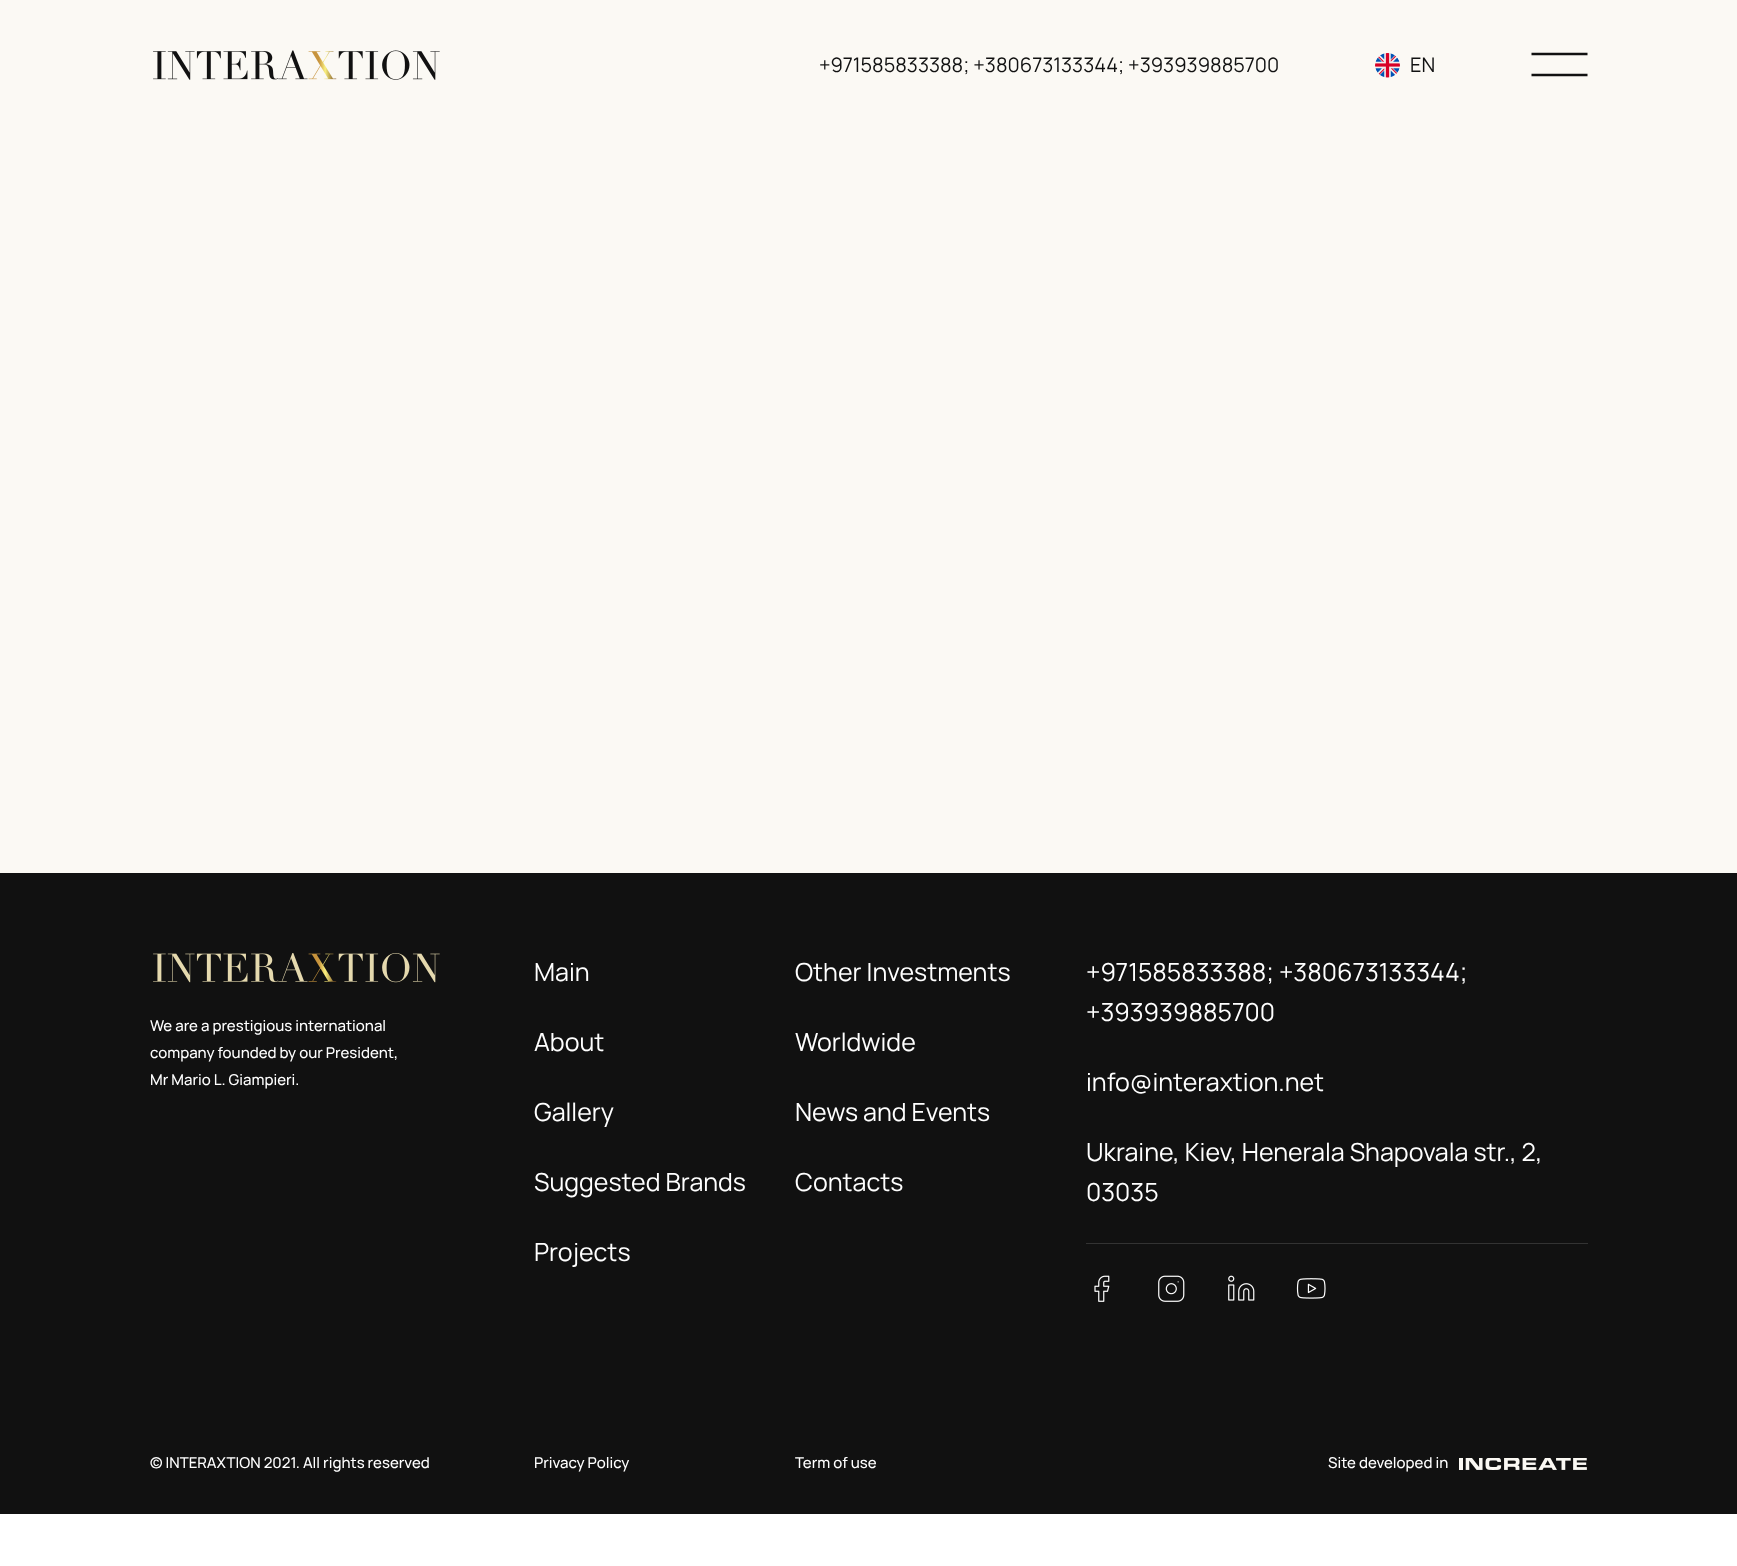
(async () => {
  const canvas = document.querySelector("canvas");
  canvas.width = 1737;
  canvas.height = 1566;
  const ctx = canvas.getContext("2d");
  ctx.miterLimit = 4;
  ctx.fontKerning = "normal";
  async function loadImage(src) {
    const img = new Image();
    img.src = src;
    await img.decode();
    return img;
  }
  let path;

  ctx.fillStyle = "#ffffff";
  ctx.fillRect(0, 0, 1737, 1566);
  ctx.fillStyle = "#fbf9f4";
  ctx.fillRect(0, 0, 1737, 873);
  ctx.drawImage(await loadImage("img/1.png"), 153, 50, 287, 30);
  ctx.drawImage(await loadImage("img/2.png"), 1375, 53, 25, 25);
  path = new Path2D("M1531.5 54H1587.5M1531.5 75H1587.5");
  ctx.strokeStyle = "#111111";
  ctx.lineWidth = 2.5;
  ctx.stroke(path);
  ctx.fillStyle = "#111111";
  ctx.fillRect(0, 873, 1737, 641);
  ctx.drawImage(await loadImage("img/3.png"), 153, 953, 287, 30);
  ctx.fillStyle = "#333333";
  ctx.fillRect(1086, 1243, 502, 1);
  ctx.drawImage(await loadImage("img/4.png"), 1094, 1275, 16, 27);
  ctx.drawImage(await loadImage("img/5.png"), 1158, 1275, 27, 27);
  ctx.drawImage(await loadImage("img/6.png"), 1228, 1275, 27, 26);
  ctx.drawImage(await loadImage("img/7.png"), 1296, 1278, 30, 21);
  ctx.drawImage(await loadImage("img/8.png"), 1459, 1458, 128, 12);
  ctx.font = "20px Manrope";
  ctx.fillStyle = "#111111";
  ctx.fillText("+971585833388; +380673133344; +393939885700", 819, 72);
  ctx.fillText("EN", 1410, 72);
  ctx.font = "500 15px Manrope";
  ctx.fillStyle = "#ffffff";
  for (const [text, x, y] of [
    ["We are a prestigious international", 150, 1031],
    ["company founded by our President,", 150, 1058],
    ["Mr Mario L. Giampieri.", 150, 1085],
  ]) {
    ctx.fillText(text, x, y);
  }
  ctx.font = "25px Manrope";
  for (const [text, x, y] of [
    ["Main", 534, 981],
    ["Other Investments", 795, 981],
    ["About", 534, 1051],
    ["Worldwide", 795, 1051],
    ["Gallery", 534, 1121],
    ["News and Events", 795, 1121],
    ["Suggested Brands", 534, 1191],
    ["Contacts", 795, 1191],
    ["Projects", 534, 1261],
    ["+971585833388; +380673133344;", 1086, 981],
    ["+393939885700", 1086, 1021],
    ["info@interaxtion.net", 1086, 1091],
    ["Ukraine, Kiev, Henerala Shapovala str., 2,", 1086, 1161],
    ["03035", 1086, 1201],
  ]) {
    ctx.fillText(text, x, y);
  }
  ctx.font = "500 15px Manrope";
  for (const [text, x, y] of [
    ["© INTERAXTION 2021. All rights reserved", 150, 1468],
    ["Privacy Policy", 534, 1468],
    ["Term of use", 795, 1468],
    ["Site developed in", 1328, 1468],
  ]) {
    ctx.fillText(text, x, y);
  }
})();
